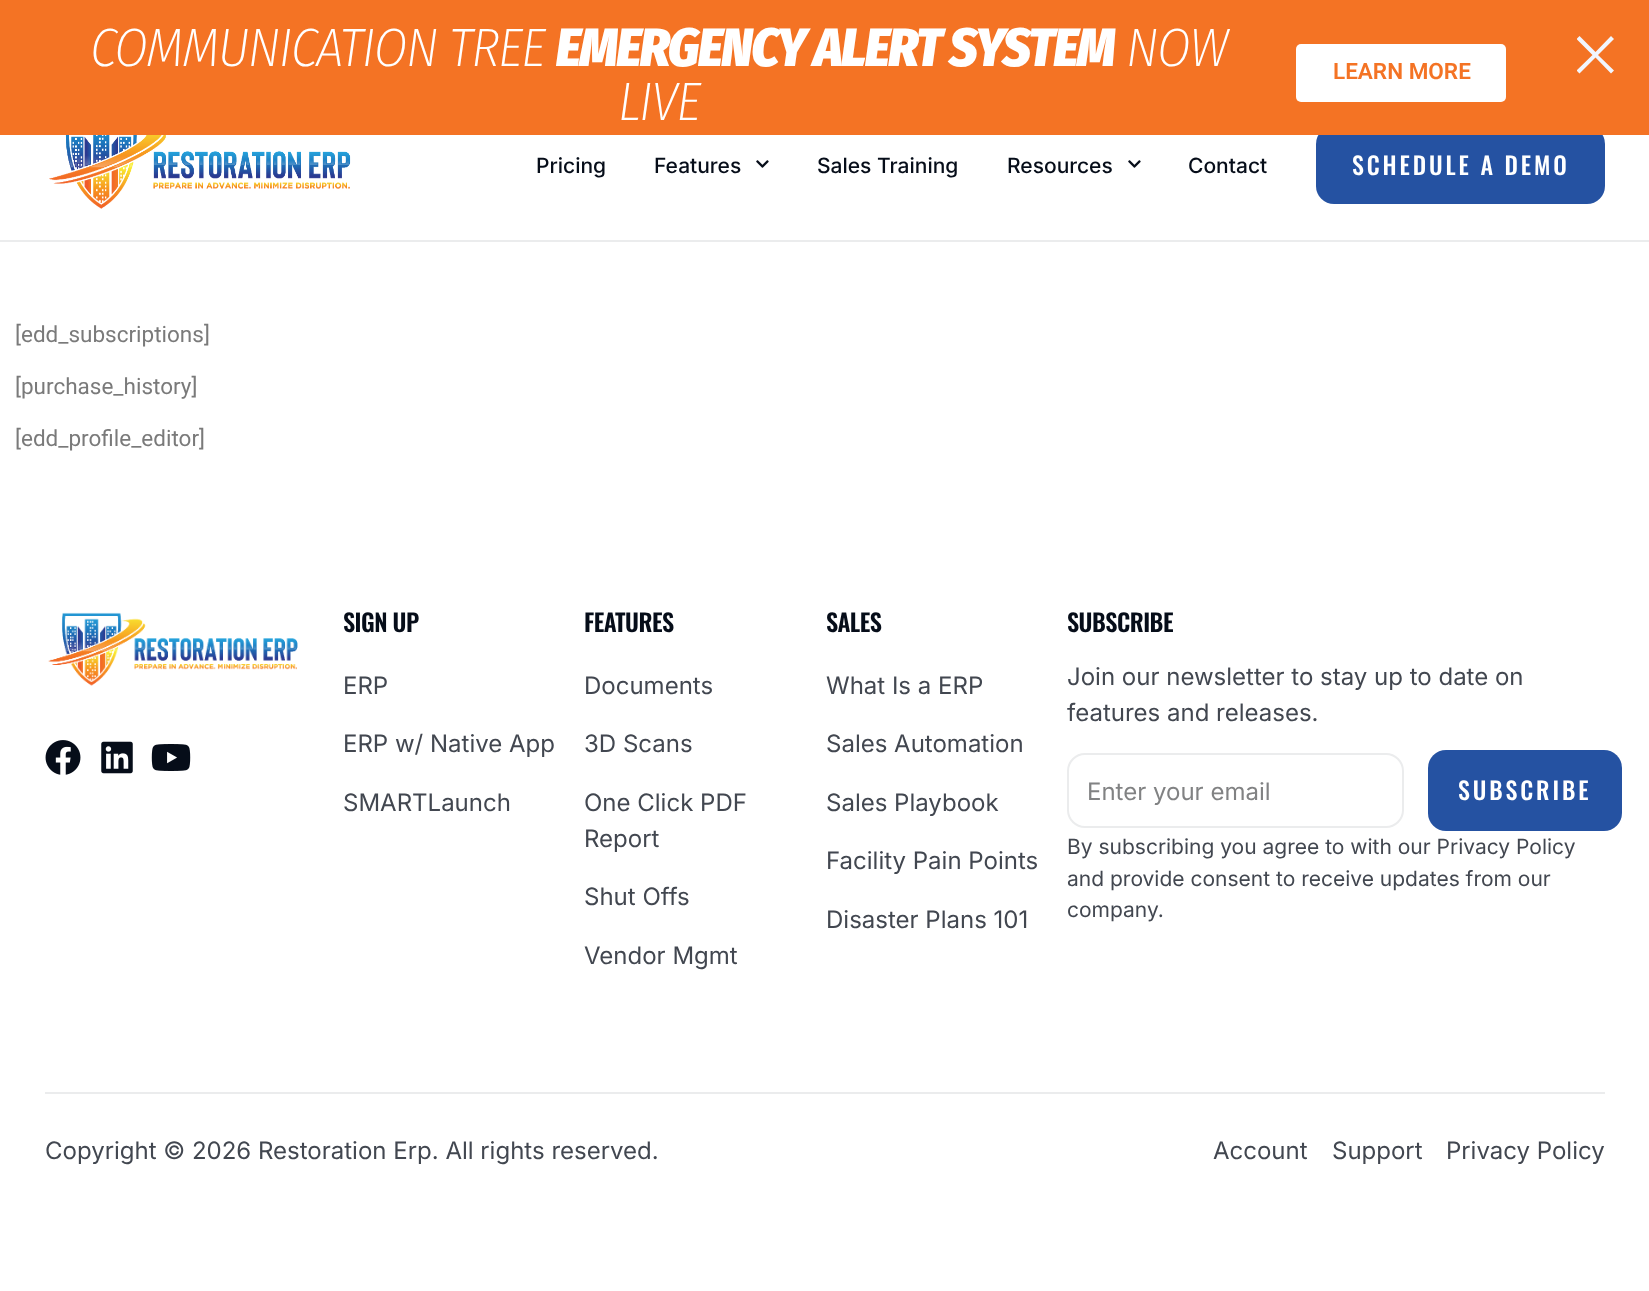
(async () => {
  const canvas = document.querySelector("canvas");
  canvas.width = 1649;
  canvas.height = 1291;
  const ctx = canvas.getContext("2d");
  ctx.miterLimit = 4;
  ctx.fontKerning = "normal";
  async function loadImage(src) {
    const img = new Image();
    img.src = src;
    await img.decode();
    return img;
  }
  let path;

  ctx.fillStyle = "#ffffff";
  ctx.fillRect(0, 0, 1649, 1291);
  ctx.fillStyle = "#2552a2";
  ctx.beginPath();
  ctx.roundRect(1316, 126, 289, 78, 18);
  ctx.fill();
  ctx.fillStyle = "#f47324";
  ctx.fillRect(0, 0, 1649, 135);
  ctx.fillStyle = "#ffffff";
  ctx.beginPath();
  ctx.roundRect(1296, 44, 210, 58, 5);
  ctx.fill();
  ctx.save();
  ctx.beginPath();
  ctx.rect(1577, 36, 37, 38);
  ctx.clip();
  ctx.fillStyle = "#f1f6ff";
  path = new Path2D("M1614 39L1611 36L1595.5 52L1579.5 36L1576.5 39L1592.5 55L1576.5 70.5L1579.5 73.5L1595.5 57.5L1611 73.5L1614 70.5L1598 55Z");
  ctx.fill(path);
  ctx.restore();
  ctx.fillStyle = "#ebeced";
  ctx.fillRect(0, 240, 1649, 2);
  ctx.drawImage(await loadImage("img/1.png"), 49, 135, 302, 74);
  ctx.drawImage(await loadImage("img/2.png"), 756, 160, 13, 8);
  ctx.drawImage(await loadImage("img/2.png"), 1128, 160, 13, 8);
  ctx.drawImage(await loadImage("img/3.png"), 48, 612, 250, 74);
  ctx.drawImage(await loadImage("img/4.png"), 45, 740, 36, 35);
  ctx.drawImage(await loadImage("img/5.png"), 101, 741, 32, 33);
  ctx.drawImage(await loadImage("img/6.png"), 151, 744, 40, 27);
  ctx.beginPath();
  ctx.roundRect(1068, 754, 335, 73, 17);
  ctx.strokeStyle = "#ebeced";
  ctx.lineWidth = 2;
  ctx.stroke();
  ctx.fillStyle = "#2552a2";
  ctx.beginPath();
  ctx.roundRect(1428, 750, 194, 81, 18);
  ctx.fill();
  ctx.fillStyle = "#ebeced";
  ctx.fillRect(45, 1092, 1560, 2);
  ctx.letterSpacing = "-1.5px";
  ctx.font = "italic 200 54px Fira Sans Condensed";
  ctx.fillStyle = "#ffffff";
  ctx.fillText("COMMUNICATION TREE", 90, 66);
  ctx.font = "italic 900 54px Fira Sans Condensed";
  ctx.fillText("EMERGENCY ALERT SYSTEM", 556, 66);
  ctx.font = "italic 200 54px Fira Sans Condensed";
  ctx.fillText("NOW", 1126, 66);
  ctx.fillText("LIVE", 618, 120);
  ctx.letterSpacing = "0px";
  ctx.font = "600 22.5px Roboto";
  ctx.fillStyle = "#f47324";
  ctx.fillText("LEARN MORE", 1333, 79);
  ctx.font = "500 21px Inter";
  ctx.fillStyle = "#060d19";
  for (const [text, x, y] of [
    ["Pricing", 536, 173],
    ["Features", 654, 173],
    ["Sales Training", 817, 173],
    ["Resources", 1007, 173],
    ["Contact", 1188, 173],
  ]) {
    ctx.fillText(text, x, y);
  }
  ctx.letterSpacing = "2.9px";
  ctx.font = "500 24px Oswald";
  ctx.fillStyle = "#ffffff";
  ctx.fillText("SCHEDULE A DEMO", 1352, 175);
  ctx.letterSpacing = "0px";
  ctx.font = "22.5px Roboto";
  ctx.fillStyle = "#7a7a7a";
  for (const [text, x, y] of [
    ["[edd_subscriptions]", 15, 342],
    ["[purchase_history]", 15, 394],
    ["[edd_profile_editor]", 15, 446],
  ]) {
    ctx.fillText(text, x, y);
  }
  ctx.letterSpacing = "-0.5px";
  ctx.font = "600 24px Oswald";
  ctx.fillStyle = "#060d19";
  ctx.fillText("SIGN UP", 343, 632);
  ctx.letterSpacing = "0px";
  ctx.font = "24px Inter";
  ctx.fillStyle = "#424750";
  for (const [text, x, y] of [
    ["ERP", 343, 694],
    ["ERP w/ Native App", 343, 752],
    ["SMARTLaunch", 343, 811],
  ]) {
    ctx.fillText(text, x, y);
  }
  ctx.letterSpacing = "-0.5px";
  ctx.font = "600 24px Oswald";
  ctx.fillStyle = "#060d19";
  ctx.fillText("FEATURES", 584, 632);
  ctx.letterSpacing = "0px";
  ctx.font = "24px Inter";
  ctx.fillStyle = "#424750";
  for (const [text, x, y] of [
    ["Documents", 584, 694],
    ["3D Scans", 584, 752],
    ["One Click PDF", 584, 811],
    ["Report", 584, 847],
    ["Shut Offs", 584, 905],
    ["Vendor Mgmt", 584, 964],
  ]) {
    ctx.fillText(text, x, y);
  }
  ctx.letterSpacing = "-0.5px";
  ctx.font = "600 24px Oswald";
  ctx.fillStyle = "#060d19";
  ctx.fillText("SALES", 826, 632);
  ctx.letterSpacing = "0px";
  ctx.font = "24px Inter";
  ctx.fillStyle = "#424750";
  for (const [text, x, y] of [
    ["What Is a ERP", 826, 694],
    ["Sales Automation", 826, 752],
    ["Sales Playbook", 826, 811],
    ["Facility Pain Points", 826, 869],
    ["Disaster Plans 101", 826, 928],
  ]) {
    ctx.fillText(text, x, y);
  }
  ctx.letterSpacing = "-0.5px";
  ctx.font = "600 24px Oswald";
  ctx.fillStyle = "#060d19";
  ctx.fillText("SUBSCRIBE", 1067, 632);
  ctx.letterSpacing = "0px";
  ctx.font = "24px Inter";
  ctx.fillStyle = "#424750";
  ctx.fillText("Join our newsletter to stay up to date on", 1067, 685);
  ctx.fillText("features and releases.", 1067, 721);
  ctx.fillStyle = "#818283";
  ctx.fillText("Enter your email", 1087, 800);
  ctx.letterSpacing = "2.9px";
  ctx.font = "500 24px Oswald";
  ctx.fillStyle = "#ffffff";
  ctx.fillText("SUBSCRIBE", 1458, 800);
  ctx.letterSpacing = "0px";
  ctx.font = "21px Inter";
  ctx.fillStyle = "#424750";
  for (const [text, x, y] of [
    ["By subscribing you agree to with our Privacy Policy", 1067, 854],
    ["and provide consent to receive updates from our", 1067, 886],
    ["company.", 1067, 917],
  ]) {
    ctx.fillText(text, x, y);
  }
  ctx.font = "24px Inter";
  for (const [text, x, y] of [
    ["Copyright © 2026 Restoration Erp. All rights reserved.", 45, 1159],
    ["Account", 1213, 1159],
    ["Support", 1332, 1159],
    ["Privacy Policy", 1446, 1159],
  ]) {
    ctx.fillText(text, x, y);
  }
})();
